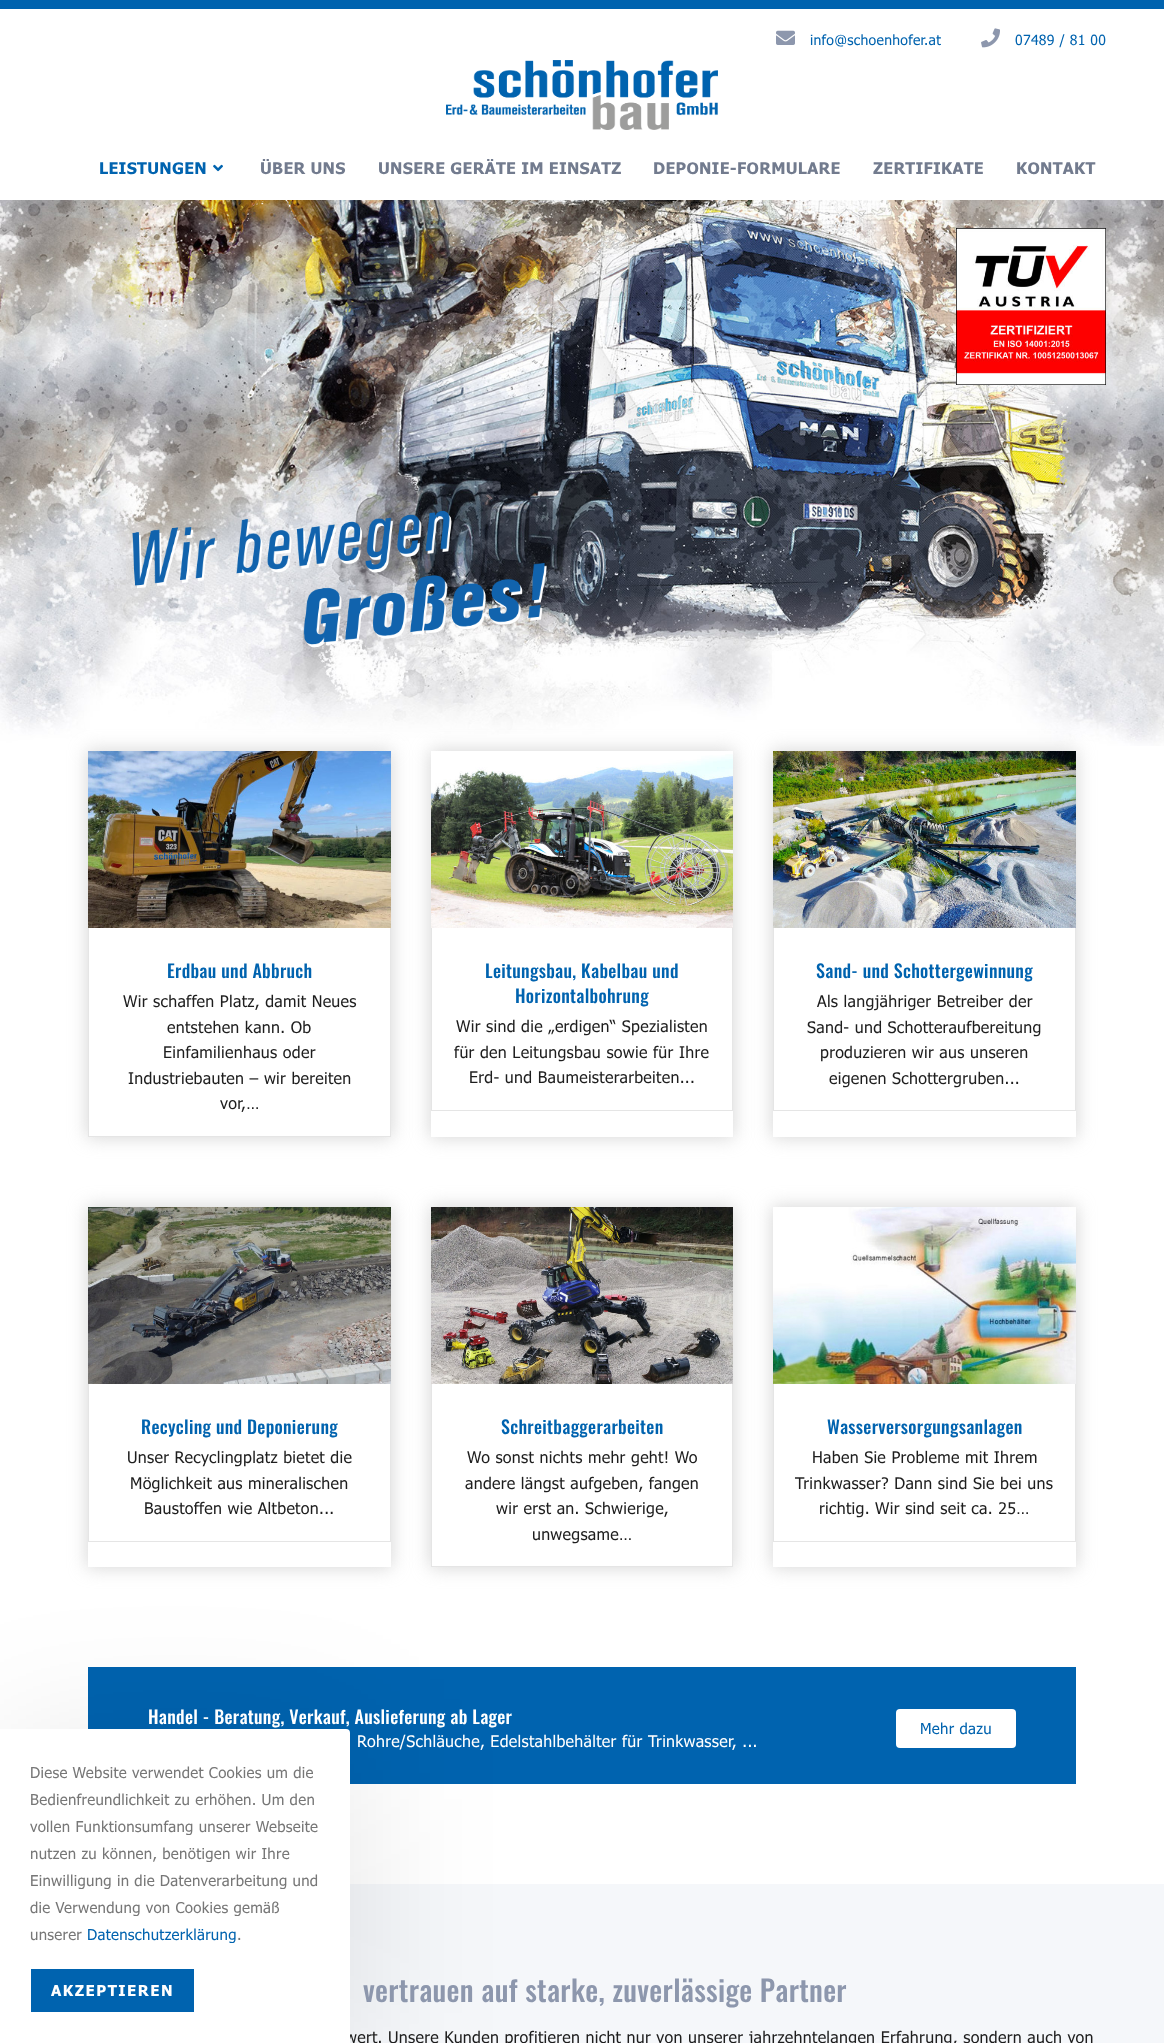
(async () => {
  const canvas = document.querySelector("canvas");
  canvas.width = 1164;
  canvas.height = 2043;
  const ctx = canvas.getContext("2d");
  ctx.miterLimit = 4;
  ctx.fontKerning = "normal";
  async function loadImage(src) {
    const img = new Image();
    img.src = src;
    await img.decode();
    return img;
  }
  let path;

  ctx.fillStyle = "#ffffff";
  ctx.fillRect(0, 0, 1164, 2043);
  ctx.fillStyle = "#0063af";
  ctx.fillRect(0, 0, 1164, 9);
  ctx.drawImage(await loadImage("img/1.png"), 776, 30, 19, 15);
  ctx.drawImage(await loadImage("img/2.png"), 981, 28, 19, 20);
  ctx.drawImage(await loadImage("img/3.png"), 446, 60, 272, 70);
  ctx.drawImage(await loadImage("img/4.png"), 213, 164, 10, 8);
  ctx.drawImage(await loadImage("img/5.png"), 0, 200, 1164, 546);
  ctx.drawImage(await loadImage("img/6.png"), 956, 228, 150, 157);
  ctx.drawImage(await loadImage("img/7.png"), 132, 510, 415, 138);
  ctx.save();
  path = new Path2D("M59 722H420V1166H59ZM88 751H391V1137H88Z");
  ctx.clip(path, "evenodd");
  ctx.fillStyle = "rgba(189, 189, 189, 0.6)";
  ctx.filter = "blur(9px)";
  ctx.beginPath();
  ctx.rect(87, 750, 305, 388);
  ctx.fill();
  ctx.filter = "none";
  ctx.restore();
  ctx.drawImage(await loadImage("img/8.png"), 88, 751, 303, 177);
  ctx.fillStyle = "#e6e6e6";
  path = new Path2D("M391 928V1137L390 1136V928Z");
  ctx.fill(path);
  ctx.fillStyle = "rgba(0, 0, 0, 0.1)";
  path = new Path2D("M391 1137H88L89 1136H390Z");
  ctx.fill(path);
  path = new Path2D("M88 1137V928H89V1136Z");
  ctx.fill(path);
  ctx.save();
  path = new Path2D("M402 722H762V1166H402ZM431 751H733V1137H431Z");
  ctx.clip(path, "evenodd");
  ctx.fillStyle = "rgba(189, 189, 189, 0.6)";
  ctx.filter = "blur(9px)";
  ctx.beginPath();
  ctx.rect(430, 750, 304, 388);
  ctx.fill();
  ctx.filter = "none";
  ctx.restore();
  ctx.drawImage(await loadImage("img/9.png"), 431, 754, 302, 174);
  ctx.fillStyle = "#e6e6e6";
  path = new Path2D("M733 928V1111L732 1110V928Z");
  ctx.fill(path);
  ctx.fillStyle = "rgba(0, 0, 0, 0.1)";
  path = new Path2D("M733 1111H431L432 1110H732Z");
  ctx.fill(path);
  path = new Path2D("M431 1111V928H432V1110Z");
  ctx.fill(path);
  ctx.save();
  path = new Path2D("M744 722H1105V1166H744ZM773 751H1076V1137H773Z");
  ctx.clip(path, "evenodd");
  ctx.fillStyle = "rgba(189, 189, 189, 0.6)";
  ctx.filter = "blur(9px)";
  ctx.beginPath();
  ctx.rect(772, 750, 305, 388);
  ctx.fill();
  ctx.filter = "none";
  ctx.restore();
  ctx.drawImage(await loadImage("img/10.png"), 773, 751, 303, 177);
  ctx.fillStyle = "#e6e6e6";
  path = new Path2D("M1076 928V1111L1075 1110V928Z");
  ctx.fill(path);
  ctx.fillStyle = "rgba(0, 0, 0, 0.1)";
  path = new Path2D("M1076 1111H773L774 1110H1075Z");
  ctx.fill(path);
  path = new Path2D("M773 1111V928H774V1110Z");
  ctx.fill(path);
  ctx.save();
  path = new Path2D("M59 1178H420V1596H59ZM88 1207H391V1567H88Z");
  ctx.clip(path, "evenodd");
  ctx.fillStyle = "rgba(189, 189, 189, 0.6)";
  ctx.filter = "blur(9px)";
  ctx.beginPath();
  ctx.rect(87, 1206, 305, 362);
  ctx.fill();
  ctx.filter = "none";
  ctx.restore();
  ctx.drawImage(await loadImage("img/11.png"), 88, 1207, 303, 177);
  ctx.fillStyle = "#e6e6e6";
  path = new Path2D("M391 1384V1542L390 1541V1384Z");
  ctx.fill(path);
  ctx.fillStyle = "rgba(0, 0, 0, 0.1)";
  path = new Path2D("M391 1542H88L89 1541H390Z");
  ctx.fill(path);
  path = new Path2D("M88 1542V1384H89V1541Z");
  ctx.fill(path);
  ctx.save();
  path = new Path2D("M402 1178H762V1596H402ZM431 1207H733V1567H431Z");
  ctx.clip(path, "evenodd");
  ctx.fillStyle = "rgba(189, 189, 189, 0.6)";
  ctx.filter = "blur(9px)";
  ctx.beginPath();
  ctx.rect(430, 1206, 304, 362);
  ctx.fill();
  ctx.filter = "none";
  ctx.restore();
  ctx.drawImage(await loadImage("img/12.png"), 431, 1207, 302, 177);
  ctx.fillStyle = "#e6e6e6";
  path = new Path2D("M733 1384V1567L732 1566V1384Z");
  ctx.fill(path);
  ctx.fillStyle = "rgba(0, 0, 0, 0.1)";
  path = new Path2D("M733 1567H431L432 1566H732Z");
  ctx.fill(path);
  path = new Path2D("M431 1567V1384H432V1566Z");
  ctx.fill(path);
  ctx.save();
  path = new Path2D("M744 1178H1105V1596H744ZM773 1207H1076V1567H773Z");
  ctx.clip(path, "evenodd");
  ctx.fillStyle = "rgba(189, 189, 189, 0.6)";
  ctx.filter = "blur(9px)";
  ctx.beginPath();
  ctx.rect(772, 1206, 305, 362);
  ctx.fill();
  ctx.filter = "none";
  ctx.restore();
  ctx.drawImage(await loadImage("img/13.png"), 773, 1207, 303, 177);
  ctx.fillStyle = "#e6e6e6";
  path = new Path2D("M1076 1384V1542L1075 1541V1384Z");
  ctx.fill(path);
  ctx.fillStyle = "rgba(0, 0, 0, 0.1)";
  path = new Path2D("M1076 1542H773L774 1541H1075Z");
  ctx.fill(path);
  path = new Path2D("M773 1542V1384H774V1541Z");
  ctx.fill(path);
  ctx.fillStyle = "#0063af";
  ctx.fillRect(88, 1667, 988, 117);
  ctx.fillStyle = "#ffffff";
  ctx.beginPath();
  ctx.roundRect(896, 1709, 120, 39, 4);
  ctx.fill();
  ctx.fillStyle = "#f5f7fa";
  ctx.fillRect(350, 1884, 814, 159);
  ctx.fillStyle = "rgba(0, 0, 0, 0.1)";
  ctx.filter = "blur(75px)";
  ctx.beginPath();
  ctx.roundRect(0, 1749, 350, 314, 4);
  ctx.fill();
  ctx.filter = "none";
  ctx.letterSpacing = "0.3px";
  ctx.font = "14px Tahoma";
  ctx.fillStyle = "#0063af";
  ctx.fillText("info@schoenhofer.at", 810, 45);
  ctx.fillText("07489 / 81 00", 1015, 45);
  ctx.font = "bold 16px Tahoma";
  ctx.fillText("LEISTUNGEN", 99, 174);
  ctx.fillStyle = "#727b8e";
  for (const [text, x, y] of [
    ["ÜBER UNS", 260, 174],
    ["UNSERE GERÄTE IM EINSATZ", 378, 174],
    ["DEPONIE-FORMULARE", 653, 174],
    ["ZERTIFIKATE", 873, 174],
    ["KONTAKT", 1016, 174],
  ]) {
    ctx.fillText(text, x, y);
  }
  ctx.font = "500 18px Oswald";
  ctx.fillStyle = "#0063af";
  ctx.fillText("Erdbau und Abbruch", 167, 978);
  ctx.font = "16px Tahoma";
  ctx.fillStyle = "#1e1e1e";
  for (const [text, x, y] of [
    ["Wir schaffen Platz, damit Neues", 123, 1007],
    ["entstehen kann. Ob", 167, 1033],
    ["Einfamilienhaus oder", 163, 1058],
    ["Industriebauten – wir bereiten", 128, 1084],
    ["vor,…", 220, 1109],
  ]) {
    ctx.fillText(text, x, y);
  }
  ctx.font = "500 18px Oswald";
  ctx.fillStyle = "#0063af";
  ctx.fillText("Leitungsbau, Kabelbau und", 485, 978);
  ctx.fillText("Horizontalbohrung", 515, 1003);
  ctx.font = "16px Tahoma";
  ctx.fillStyle = "#1e1e1e";
  for (const [text, x, y] of [
    ["Wir sind die „erdigen“ Spezialisten", 456, 1032],
    ["für den Leitungsbau sowie für Ihre", 454, 1058],
    ["Erd- und Baumeisterarbeiten...", 469, 1083],
  ]) {
    ctx.fillText(text, x, y);
  }
  ctx.font = "500 18px Oswald";
  ctx.fillStyle = "#0063af";
  ctx.fillText("Sand- und Schottergewinnung", 816, 978);
  ctx.font = "16px Tahoma";
  ctx.fillStyle = "#1e1e1e";
  for (const [text, x, y] of [
    ["Als langjähriger Betreiber der", 817, 1007],
    ["Sand- und Schotteraufbereitung", 807, 1033],
    ["produzieren wir aus unseren", 820, 1058],
    ["eigenen Schottergruben...", 829, 1084],
  ]) {
    ctx.fillText(text, x, y);
  }
  ctx.font = "500 18px Oswald";
  ctx.fillStyle = "#0063af";
  ctx.fillText("Recycling und Deponierung", 141, 1434);
  ctx.font = "16px Tahoma";
  ctx.fillStyle = "#1e1e1e";
  for (const [text, x, y] of [
    ["Unser Recyclingplatz bietet die", 127, 1463],
    ["Möglichkeit aus mineralischen", 130, 1489],
    ["Baustoffen wie Altbeton...", 144, 1514],
  ]) {
    ctx.fillText(text, x, y);
  }
  ctx.font = "500 18px Oswald";
  ctx.fillStyle = "#0063af";
  ctx.fillText("Schreitbaggerarbeiten", 501, 1434);
  ctx.font = "16px Tahoma";
  ctx.fillStyle = "#1e1e1e";
  for (const [text, x, y] of [
    ["Wo sonst nichts mehr geht! Wo", 467, 1463],
    ["andere längst aufgeben, fangen", 465, 1489],
    ["wir erst an. Schwierige,", 496, 1514],
    ["unwegsame…", 532, 1540],
  ]) {
    ctx.fillText(text, x, y);
  }
  ctx.font = "500 18px Oswald";
  ctx.fillStyle = "#0063af";
  ctx.fillText("Wasserversorgungsanlagen", 827, 1434);
  ctx.font = "16px Tahoma";
  ctx.fillStyle = "#1e1e1e";
  for (const [text, x, y] of [
    ["Haben Sie Probleme mit Ihrem", 812, 1463],
    ["Trinkwasser? Dann sind Sie bei uns", 795, 1489],
    ["richtig. Wir sind seit ca. 25…", 819, 1514],
  ]) {
    ctx.fillText(text, x, y);
  }
  ctx.font = "500 18px Oswald";
  ctx.fillStyle = "#ffffff";
  ctx.fillText("Handel - Beratung, Verkauf, Auslieferung ab Lager", 148, 1724);
  ctx.font = "16px Tahoma";
  ctx.fillText("Rohre/Schläuche, Edelstahlbehälter für Trinkwasser, ...", 357, 1747);
  ctx.font = "15px Tahoma";
  ctx.fillStyle = "#0063af";
  ctx.fillText("Mehr dazu", 920, 1734);
  ctx.font = "500 29px Oswald";
  ctx.fillStyle = "#8d97ad";
  ctx.fillText("vertrauen auf starke, zuverlässige Partner", 363, 2002);
  ctx.font = "16px Tahoma";
  ctx.fillStyle = "#1e1e1e";
  ctx.fillText("wert. Unsere Kunden profitieren nicht nur von unserer jahrzehntelangen Erfahrung, sondern auch von", 345, 2043);
  ctx.fillStyle = "#ffffff";
  ctx.beginPath();
  ctx.roundRect(0, 1729, 350, 314, [0, 4, 0, 0]);
  ctx.fill();
  ctx.font = "15px Tahoma";
  ctx.fillStyle = "#777777";
  for (const [text, x, y] of [
    ["Diese Website verwendet Cookies um die", 30, 1778],
    ["Bedienfreundlichkeit zu erhöhen. Um den", 30, 1805],
    ["vollen Funktionsumfang unserer Webseite", 30, 1832],
    ["nutzen zu können, benötigen wir Ihre", 30, 1859],
    ["Einwilligung in die Datenverarbeitung und", 30, 1886],
    ["die Verwendung von Cookies gemäß", 30, 1913],
    ["unserer", 30, 1940],
  ]) {
    ctx.fillText(text, x, y);
  }
  ctx.fillStyle = "#0063af";
  ctx.fillText("Datenschutzerklärung", 87, 1940);
  ctx.fillStyle = "#777777";
  ctx.fillText(".", 237, 1940);
  ctx.fillStyle = "#0063af";
  ctx.fillRect(31, 1969, 163, 43);
  ctx.letterSpacing = "1.5px";
  ctx.font = "bold 15px Tahoma";
  ctx.fillStyle = "#ffffff";
  ctx.fillText("AKZEPTIEREN", 51, 1996);
})();
